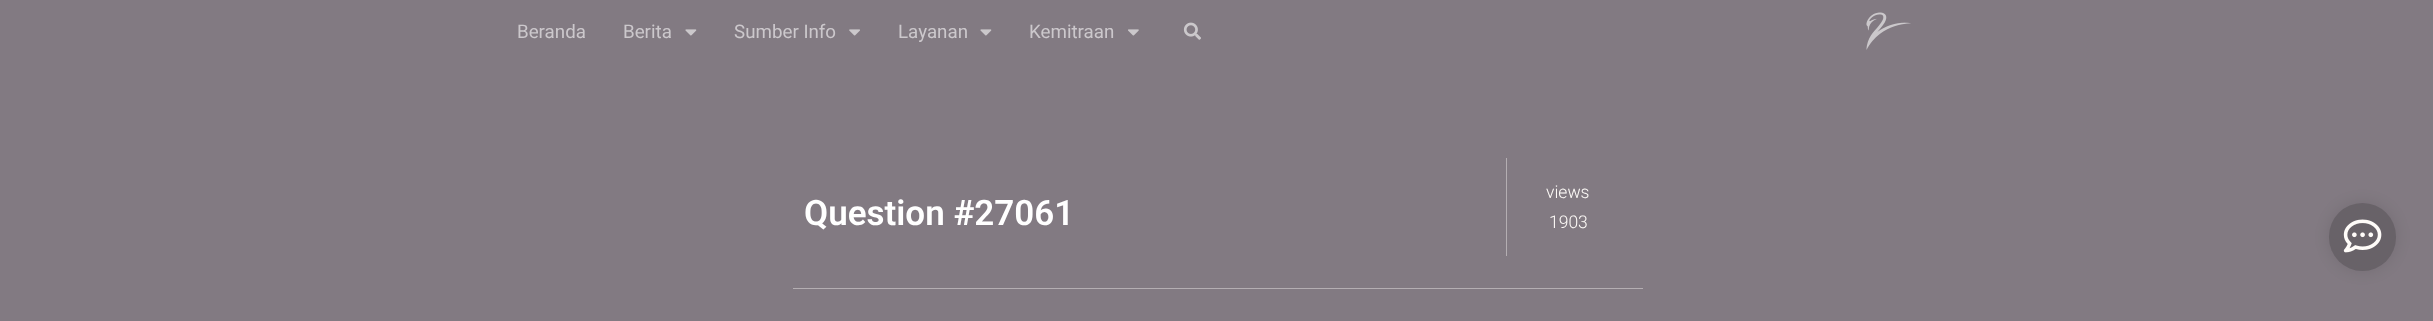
(async () => {
  const canvas = document.querySelector("canvas");
  canvas.width = 2433;
  canvas.height = 321;
  const ctx = canvas.getContext("2d");
  ctx.miterLimit = 4;
  ctx.fontKerning = "normal";
  async function loadImage(src) {
    const img = new Image();
    img.src = src;
    await img.decode();
    return img;
  }

  ctx.fillStyle = "#827a82";
  ctx.fillRect(0, 0, 2433, 321);
  ctx.drawImage(await loadImage("img/1.png"), 685, 29, 12, 7);
  ctx.drawImage(await loadImage("img/2.png"), 849, 29, 11, 7);
  ctx.drawImage(await loadImage("img/1.png"), 980, 29, 12, 7);
  ctx.drawImage(await loadImage("img/3.png"), 1128, 29, 11, 7);
  ctx.drawImage(await loadImage("img/4.png"), 1183, 22, 18, 18);
  ctx.drawImage(await loadImage("img/5.png"), 1866, 12, 45, 38);
  ctx.fillStyle = "#b4aeb2";
  ctx.fillRect(793, 288, 850, 1);
  ctx.fillRect(1506, 158, 1, 98);
  ctx.fillStyle = "rgba(0, 0, 0, 0.1)";
  ctx.filter = "blur(7.5px)";
  ctx.beginPath();
  ctx.roundRect(2329, 203, 67, 68, 33.5);
  ctx.fill();
  ctx.filter = "none";
  ctx.fillStyle = "#686268";
  ctx.beginPath();
  ctx.roundRect(2329, 203, 67, 68, 33.5);
  ctx.fill();
  ctx.drawImage(await loadImage("img/6.png"), 2343, 219, 39, 34);
  ctx.font = "18.75px Roboto";
  ctx.fillStyle = "#ccc8cc";
  for (const [text, x, y] of [
    ["Beranda", 517, 38],
    ["Berita", 623, 38],
    ["Sumber Info", 734, 38],
    ["Layanan", 898, 38],
    ["Kemitraan", 1029, 38],
  ]) {
    ctx.fillText(text, x, y);
  }
  ctx.font = "600 35px Roboto";
  ctx.fillStyle = "#ffffff";
  ctx.fillText("Question #27061", 804, 225);
  ctx.font = "300 17.5px Roboto";
  ctx.fillStyle = "#fffcf9";
  ctx.fillText("views", 1546, 198);
  ctx.fillText("1903", 1549, 228);
})();
